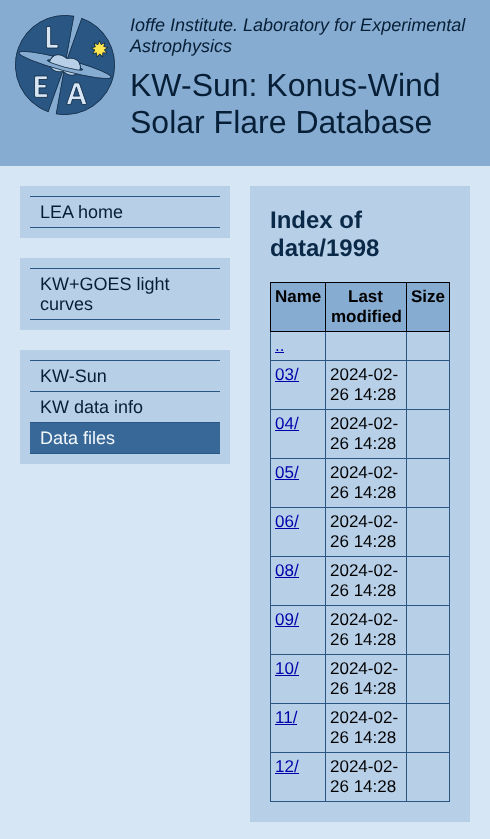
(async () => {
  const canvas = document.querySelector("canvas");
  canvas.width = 490;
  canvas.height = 839;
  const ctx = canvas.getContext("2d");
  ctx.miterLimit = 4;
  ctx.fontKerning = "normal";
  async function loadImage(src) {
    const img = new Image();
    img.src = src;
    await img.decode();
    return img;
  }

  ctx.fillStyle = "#d7e6f5";
  ctx.fillRect(0, 0, 490, 839);
  ctx.fillStyle = "#87acd1";
  ctx.fillRect(0, 0, 490, 166);
  ctx.drawImage(await loadImage("img/1.png"), 15, 15, 100, 100);
  for (const [x, y, w, h, color] of [
    [20, 186, 210, 52, "#b7cfe7"],
    [30, 196, 190, 1, "#295682"],
    [30, 227, 190, 1, "#295682"],
    [20, 258, 210, 72, "#b7cfe7"],
    [30, 268, 190, 1, "#295682"],
    [30, 319, 190, 1, "#295682"],
    [20, 350, 210, 114, "#b7cfe7"],
    [30, 360, 190, 1, "#295682"],
    [30, 391, 190, 1, "#295682"],
    [30, 422, 190, 1, "#295682"],
    [30, 423, 190, 30, "#386897"],
    [30, 453, 190, 1, "#295682"],
    [250, 186, 220, 636, "#b7cfe7"],
    [271, 283, 54, 48, "#87acd1"],
    [406, 282, 44, 1, "#000000"],
    [406, 360, 44, 1, "#295682"],
    [406, 409, 44, 1, "#295682"],
    [406, 458, 44, 1, "#295682"],
    [406, 507, 44, 1, "#295682"],
    [406, 556, 44, 1, "#295682"],
    [406, 605, 44, 1, "#295682"],
    [406, 654, 44, 1, "#295682"],
    [406, 703, 44, 1, "#295682"],
    [406, 752, 44, 1, "#295682"],
    [449, 752, 1, 50, "#295682"],
    [449, 703, 1, 50, "#295682"],
    [449, 654, 1, 50, "#295682"],
    [449, 605, 1, 50, "#295682"],
    [449, 556, 1, 50, "#295682"],
    [449, 507, 1, 50, "#295682"],
    [449, 458, 1, 50, "#295682"],
    [449, 409, 1, 50, "#295682"],
    [449, 331, 1, 79, "#295682"],
    [449, 282, 1, 50, "#000000"],
    [406, 801, 44, 1, "#295682"],
    [406, 752, 1, 50, "#295682"],
    [325, 752, 82, 1, "#295682"],
    [406, 703, 1, 50, "#295682"],
    [325, 703, 82, 1, "#295682"],
    [406, 654, 1, 50, "#295682"],
    [325, 654, 82, 1, "#295682"],
    [406, 605, 1, 50, "#295682"],
    [325, 605, 82, 1, "#295682"],
    [406, 556, 1, 50, "#295682"],
    [325, 556, 82, 1, "#295682"],
    [406, 507, 1, 50, "#295682"],
    [325, 507, 82, 1, "#295682"],
    [406, 458, 1, 50, "#295682"],
    [325, 458, 82, 1, "#295682"],
    [406, 409, 1, 50, "#295682"],
    [325, 409, 82, 1, "#295682"],
    [406, 360, 1, 50, "#295682"],
    [325, 360, 82, 1, "#295682"],
    [406, 331, 1, 30, "#295682"],
    [406, 331, 44, 1, "#000000"],
    [406, 282, 1, 50, "#000000"],
    [325, 282, 82, 1, "#000000"],
    [325, 801, 82, 1, "#295682"],
    [325, 752, 1, 50, "#295682"],
    [270, 752, 56, 1, "#295682"],
    [325, 703, 1, 50, "#295682"],
    [270, 703, 56, 1, "#295682"],
    [325, 654, 1, 50, "#295682"],
    [270, 654, 56, 1, "#295682"],
    [325, 605, 1, 50, "#295682"],
    [270, 605, 56, 1, "#295682"],
    [325, 556, 1, 50, "#295682"],
    [270, 556, 56, 1, "#295682"],
    [325, 507, 1, 50, "#295682"],
    [270, 507, 56, 1, "#295682"],
    [325, 458, 1, 50, "#295682"],
    [270, 458, 56, 1, "#295682"],
    [325, 409, 1, 50, "#295682"],
    [270, 409, 56, 1, "#295682"],
    [325, 360, 1, 50, "#295682"],
    [270, 360, 56, 1, "#295682"],
    [325, 331, 1, 30, "#295682"],
    [325, 331, 82, 1, "#000000"],
    [325, 282, 1, 50, "#000000"],
    [270, 282, 56, 1, "#000000"],
    [270, 801, 56, 1, "#295682"],
    [270, 752, 1, 50, "#295682"],
    [270, 703, 1, 50, "#295682"],
    [270, 654, 1, 50, "#295682"],
    [270, 605, 1, 50, "#295682"],
    [270, 556, 1, 50, "#295682"],
    [270, 507, 1, 50, "#295682"],
    [270, 458, 1, 50, "#295682"],
    [270, 409, 1, 50, "#295682"],
    [270, 331, 1, 79, "#295682"],
    [270, 331, 56, 1, "#000000"],
    [270, 282, 1, 50, "#000000"],
    [326, 283, 80, 48, "#87acd1"],
    [407, 283, 42, 48, "#87acd1"],
    [275, 352, 9, 1, "#0000aa"],
    [275, 381, 24, 1, "#0000aa"],
    [275, 430, 24, 1, "#0000aa"],
    [275, 479, 24, 1, "#0000aa"],
    [275, 528, 24, 1, "#0000aa"],
    [275, 577, 24, 1, "#0000aa"],
    [275, 626, 24, 1, "#0000aa"],
    [275, 675, 24, 1, "#0000aa"],
    [275, 724, 22, 1, "#0000aa"],
    [275, 773, 24, 1, "#0000aa"],
  ]) {
    ctx.fillStyle = color;
    ctx.fillRect(x, y, w, h);
  }
  ctx.font = "italic 18px Liberation Sans";
  ctx.fillStyle = "#071f36";
  ctx.fillText("Ioffe Institute. Laboratory for Experimental", 130, 31);
  ctx.fillText("Astrophysics", 130, 52);
  ctx.font = "32px Liberation Sans";
  ctx.fillText("KW-Sun: Konus-Wind", 130, 96);
  ctx.fillText("Solar Flare Database", 130, 133);
  ctx.font = "18px Liberation Sans";
  for (const [text, x, y] of [
    ["LEA home", 40, 218],
    ["KW+GOES light", 40, 290],
    ["curves", 40, 310],
    ["KW-Sun", 40, 382],
    ["KW data info", 40, 413],
  ]) {
    ctx.fillText(text, x, y);
  }
  ctx.fillStyle = "#f2f7fc";
  ctx.fillText("Data files", 40, 444);
  ctx.font = "bold 24px Liberation Sans";
  ctx.fillStyle = "#0a2948";
  ctx.fillText("Index of", 270, 228);
  ctx.fillText("data/1998", 270, 256);
  ctx.font = "bold 17px Liberation Sans";
  ctx.fillStyle = "#000000";
  for (const [text, x, y] of [
    ["Name", 275, 302],
    ["Last", 348, 302],
    ["modified", 331, 322],
    ["Size", 411, 302],
  ]) {
    ctx.fillText(text, x, y);
  }
  ctx.font = "17px Liberation Sans";
  ctx.fillStyle = "#0000aa";
  ctx.fillText("..", 275, 351);
  ctx.fillText("03/", 275, 380);
  ctx.fillStyle = "#000000";
  ctx.fillText("2024-02-", 330, 380);
  ctx.fillText("26 14:28", 330, 400);
  ctx.fillStyle = "#0000aa";
  ctx.fillText("04/", 275, 429);
  ctx.fillStyle = "#000000";
  ctx.fillText("2024-02-", 330, 429);
  ctx.fillText("26 14:28", 330, 449);
  ctx.fillStyle = "#0000aa";
  ctx.fillText("05/", 275, 478);
  ctx.fillStyle = "#000000";
  ctx.fillText("2024-02-", 330, 478);
  ctx.fillText("26 14:28", 330, 498);
  ctx.fillStyle = "#0000aa";
  ctx.fillText("06/", 275, 527);
  ctx.fillStyle = "#000000";
  ctx.fillText("2024-02-", 330, 527);
  ctx.fillText("26 14:28", 330, 547);
  ctx.fillStyle = "#0000aa";
  ctx.fillText("08/", 275, 576);
  ctx.fillStyle = "#000000";
  ctx.fillText("2024-02-", 330, 576);
  ctx.fillText("26 14:28", 330, 596);
  ctx.fillStyle = "#0000aa";
  ctx.fillText("09/", 275, 625);
  ctx.fillStyle = "#000000";
  ctx.fillText("2024-02-", 330, 625);
  ctx.fillText("26 14:28", 330, 645);
  ctx.fillStyle = "#0000aa";
  ctx.fillText("10/", 275, 674);
  ctx.fillStyle = "#000000";
  ctx.fillText("2024-02-", 330, 674);
  ctx.fillText("26 14:28", 330, 694);
  ctx.fillStyle = "#0000aa";
  ctx.fillText("11/", 275, 723);
  ctx.fillStyle = "#000000";
  ctx.fillText("2024-02-", 330, 723);
  ctx.fillText("26 14:28", 330, 743);
  ctx.fillStyle = "#0000aa";
  ctx.fillText("12/", 275, 772);
  ctx.fillStyle = "#000000";
  ctx.fillText("2024-02-", 330, 772);
  ctx.fillText("26 14:28", 330, 792);
})();
